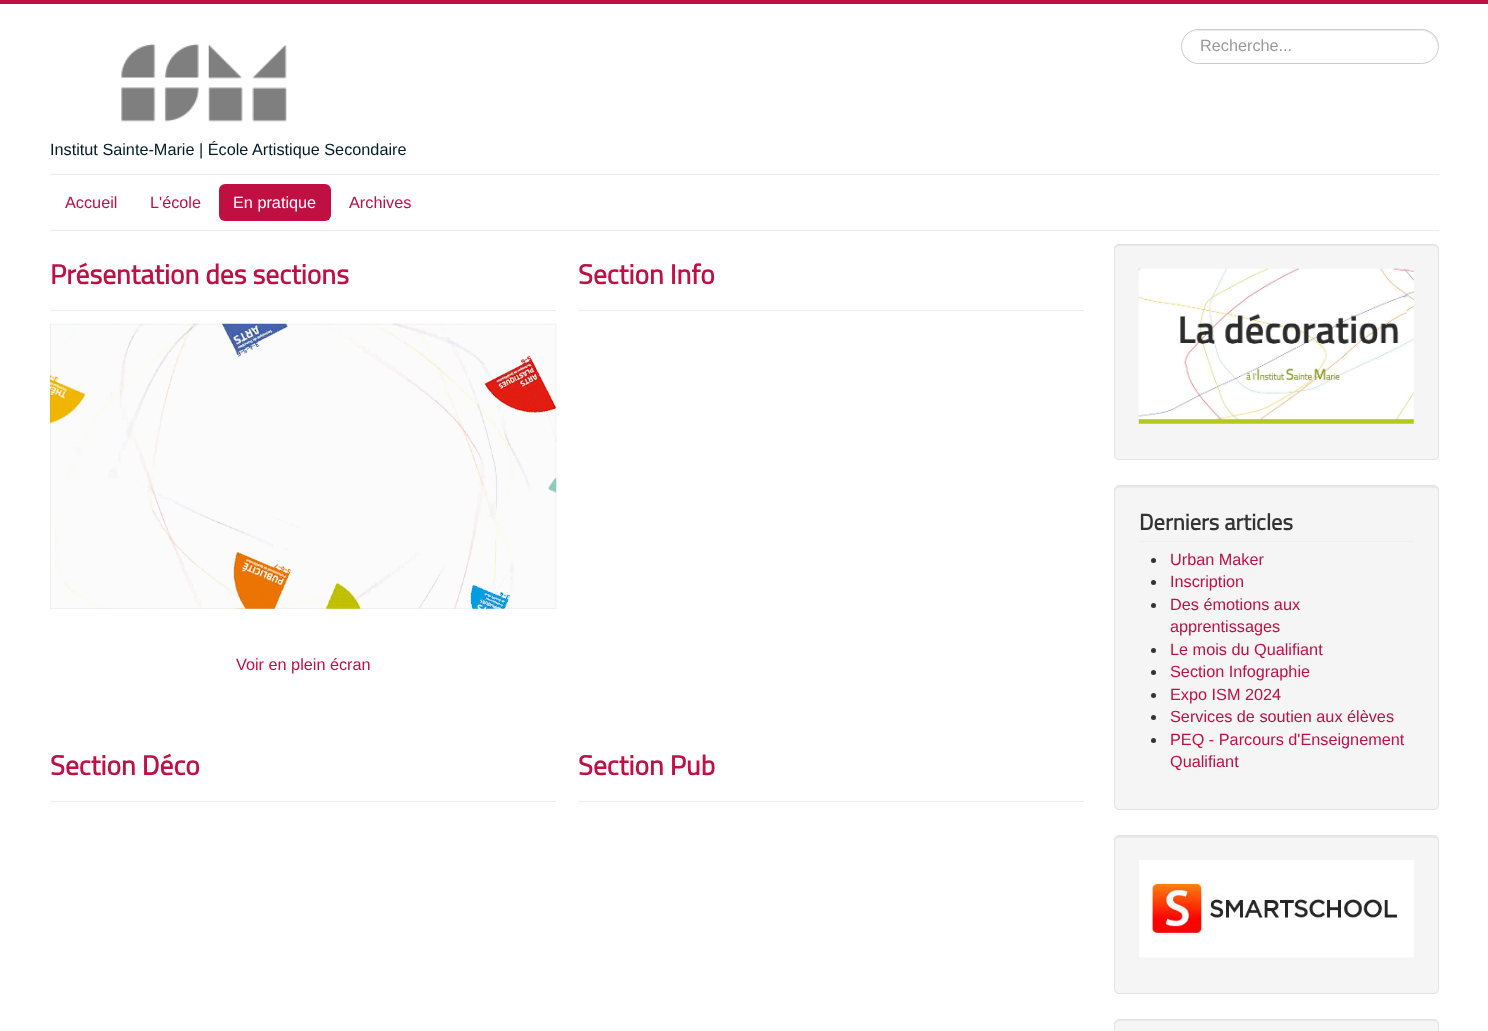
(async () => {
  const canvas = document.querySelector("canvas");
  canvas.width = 1488;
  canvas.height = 1031;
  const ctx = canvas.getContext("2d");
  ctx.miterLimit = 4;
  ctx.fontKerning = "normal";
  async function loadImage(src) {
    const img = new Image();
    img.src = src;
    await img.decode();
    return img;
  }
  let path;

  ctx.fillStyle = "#ffffff";
  ctx.fillRect(0, 0, 1488, 1031);
  ctx.fillStyle = "#c00f43";
  ctx.fillRect(0, 0, 1488, 4);
  ctx.fillStyle = "#ececec";
  path = new Path2D("M1199 31H1421C1430 31 1438 39 1438 47V46C1438 37 1431 30 1422 30H1200C1193 30 1188 34 1185 39C1188 34 1193 31 1199 31Z");
  ctx.fill(path);
  ctx.beginPath();
  ctx.roundRect(1181.5, 29.5, 257, 34, 17);
  ctx.strokeStyle = "#cccccc";
  ctx.stroke();
  ctx.drawImage(await loadImage("img/1.png"), 121, 43, 166, 79);
  ctx.fillRect(50, 174, 1389, 1);
  ctx.fillRect(50, 230, 1389, 1);
  ctx.fillStyle = "#c00f43";
  ctx.beginPath();
  ctx.roundRect(219, 184, 112, 37, 6);
  ctx.fill();
  ctx.fillStyle = "#eeeeee";
  ctx.fillRect(50, 310, 506, 1);
  ctx.drawImage(await loadImage("img/2.png"), 50, 323, 507, 286);
  for (const [x, y, w, h, color] of [
    [578, 310, 506, 1, "#eeeeee"],
    [50, 801, 506, 1, "#eeeeee"],
    [578, 801, 506, 1, "#eeeeee"],
  ]) {
    ctx.fillStyle = color;
    ctx.fillRect(x, y, w, h);
  }
  ctx.fillStyle = "#f5f5f5";
  ctx.beginPath();
  ctx.roundRect(1114, 244, 325, 216, 5);
  ctx.fill();
  ctx.fillStyle = "#e9e9e9";
  path = new Path2D("M1119 246H1434C1436 246 1438 248 1438 250V249C1438 247 1436 245 1434 245H1119C1117 245 1115 247 1115 249V250C1115 248 1117 246 1119 246Z");
  ctx.fill(path);
  ctx.beginPath();
  ctx.roundRect(1114.5, 244.5, 324, 215, 4.5);
  ctx.strokeStyle = "#e3e3e3";
  ctx.stroke();
  ctx.drawImage(await loadImage("img/3.png"), 1138, 268, 276, 156);
  ctx.fillStyle = "#f5f5f5";
  ctx.beginPath();
  ctx.roundRect(1114, 485, 325, 325, 5);
  ctx.fill();
  ctx.fillStyle = "#e9e9e9";
  path = new Path2D("M1119 488H1434C1436 488 1438 489 1438 491V490C1438 488 1436 486 1434 486H1119C1117 486 1115 488 1115 490V491C1115 489 1117 488 1119 488Z");
  ctx.fill(path);
  ctx.beginPath();
  ctx.roundRect(1114.5, 485.5, 324, 324, 4.5);
  ctx.stroke();
  ctx.fillStyle = "#eeeeee";
  ctx.fillRect(1139, 541, 275, 1);
  ctx.fillStyle = "#333333";
  ctx.beginPath();
  ctx.arc(1153.5, 560.5, 2.5, 0, Math.PI * 2);
  ctx.fill();
  ctx.beginPath();
  ctx.arc(1153.5, 582.5, 2.5, 0, Math.PI * 2);
  ctx.fill();
  ctx.beginPath();
  ctx.arc(1153.5, 605.5, 2.5, 0, Math.PI * 2);
  ctx.fill();
  ctx.beginPath();
  ctx.arc(1153.5, 650.5, 2.5, 0, Math.PI * 2);
  ctx.fill();
  ctx.beginPath();
  ctx.arc(1153.5, 672.5, 2.5, 0, Math.PI * 2);
  ctx.fill();
  ctx.beginPath();
  ctx.arc(1153.5, 695.5, 2.5, 0, Math.PI * 2);
  ctx.fill();
  ctx.beginPath();
  ctx.arc(1153.5, 717.5, 2.5, 0, Math.PI * 2);
  ctx.fill();
  ctx.beginPath();
  ctx.arc(1153.5, 740.5, 2.5, 0, Math.PI * 2);
  ctx.fill();
  ctx.fillStyle = "#f5f5f5";
  ctx.beginPath();
  ctx.roundRect(1114, 835, 325, 159, 5);
  ctx.fill();
  ctx.fillStyle = "#e9e9e9";
  path = new Path2D("M1119 838H1434C1436 838 1438 839 1438 841V840C1438 838 1436 836 1434 836H1119C1117 836 1115 838 1115 840V841C1115 839 1117 838 1119 838Z");
  ctx.fill(path);
  ctx.beginPath();
  ctx.roundRect(1114.5, 835.5, 324, 158, 4.5);
  ctx.stroke();
  ctx.drawImage(await loadImage("img/4.png"), 1139, 860, 275, 98);
  ctx.fillStyle = "#f5f5f5";
  ctx.beginPath();
  ctx.roundRect(1114, 1019, 325, 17, 5);
  ctx.fill();
  ctx.fillStyle = "#e9e9e9";
  path = new Path2D("M1119 1021H1434C1436 1021 1438 1023 1438 1025V1024C1438 1022 1436 1020 1434 1020H1119C1117 1020 1115 1022 1115 1024V1025C1115 1023 1117 1021 1119 1021Z");
  ctx.fill(path);
  ctx.beginPath();
  ctx.roundRect(1114.5, 1019.5, 324, 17, 4.5);
  ctx.stroke();
  ctx.font = "16.25px Liberation Sans";
  ctx.fillStyle = "#999999";
  ctx.fillText("Recherche...", 1200, 51);
  ctx.fillStyle = "#001a27";
  ctx.fillText("Institut Sainte-Marie | École Artistique Secondaire", 50, 155);
  ctx.fillStyle = "#c00f43";
  ctx.fillText("Accueil", 65, 208);
  ctx.fillText("L'école", 150, 208);
  ctx.fillStyle = "#ffffff";
  ctx.fillText("En pratique", 233, 208);
  ctx.fillStyle = "#c00f43";
  ctx.fillText("Archives", 349, 208);
  ctx.font = "bold 27.5px Titillium Web";
  ctx.fillText("Présentation des sections", 50, 284);
  ctx.font = "16.25px Liberation Sans";
  ctx.fillText("Voir en plein écran", 236, 670);
  ctx.font = "bold 27.5px Titillium Web";
  for (const [text, x, y] of [
    ["Section Info", 578, 284],
    ["Section Déco", 50, 775],
    ["Section Pub", 578, 775],
  ]) {
    ctx.fillText(text, x, y);
  }
  ctx.font = "bold 22.5px Titillium Web";
  ctx.fillStyle = "#333333";
  ctx.fillText("Derniers articles", 1139, 530);
  ctx.font = "16.25px Liberation Sans";
  ctx.fillStyle = "#c00f43";
  for (const [text, x, y] of [
    ["Urban Maker", 1170, 565],
    ["Inscription", 1170, 587],
    ["Des émotions aux", 1170, 610],
    ["apprentissages", 1170, 632],
    ["Le mois du Qualifiant", 1170, 655],
    ["Section Infographie", 1170, 677],
    ["Expo ISM 2024", 1170, 700],
    ["Services de soutien aux élèves", 1170, 722],
    ["PEQ - Parcours d'Enseignement", 1170, 745],
    ["Qualifiant", 1170, 767],
  ]) {
    ctx.fillText(text, x, y);
  }
})();
